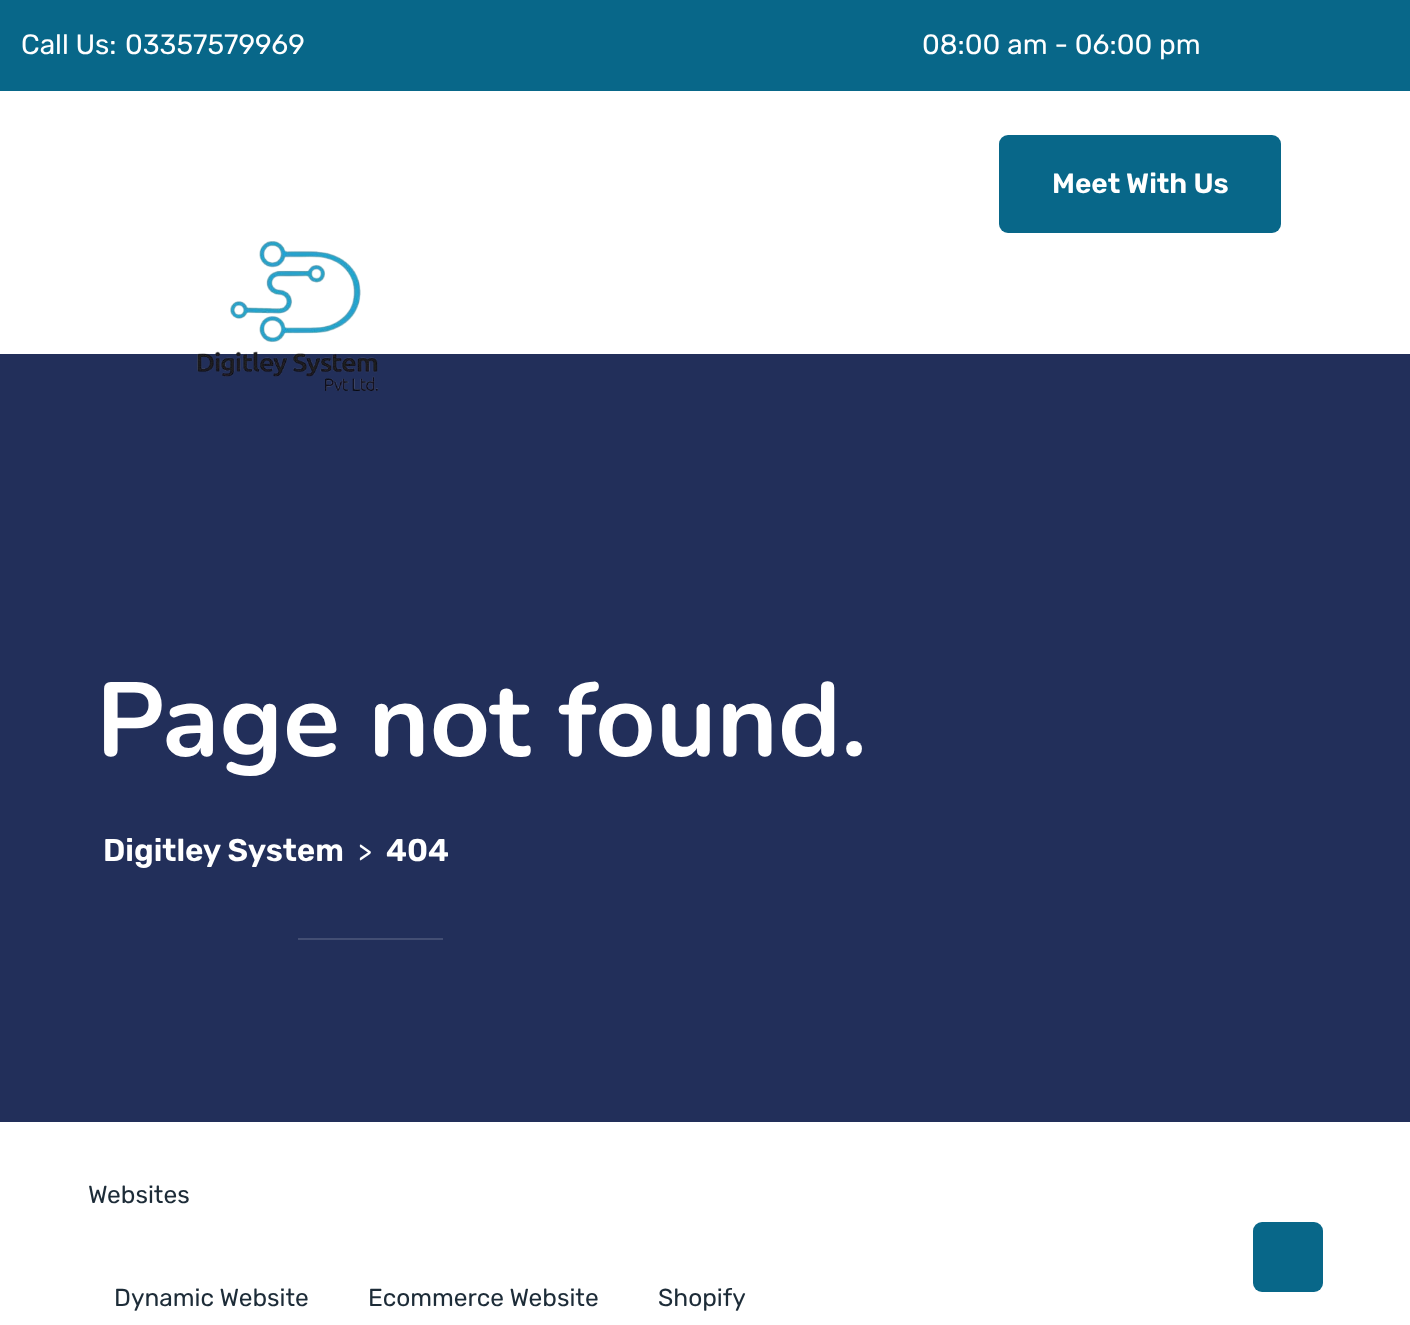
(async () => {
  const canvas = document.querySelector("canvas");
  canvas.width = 1410;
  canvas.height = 1325;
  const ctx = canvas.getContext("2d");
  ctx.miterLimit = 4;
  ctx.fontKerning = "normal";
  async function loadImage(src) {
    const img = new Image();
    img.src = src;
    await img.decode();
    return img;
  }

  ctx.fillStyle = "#ffffff";
  ctx.fillRect(0, 0, 1410, 1325);
  ctx.fillStyle = "#086789";
  ctx.fillRect(0, 0, 1410, 91);
  ctx.beginPath();
  ctx.roundRect(999, 135, 282, 98, 9);
  ctx.fill();
  ctx.fillStyle = "#222f5a";
  ctx.fillRect(0, 354, 1410, 768);
  ctx.fillStyle = "#434e73";
  ctx.fillRect(298, 938, 145, 2);
  ctx.drawImage(await loadImage("img/1.png"), 197, 241, 181, 150);
  ctx.fillStyle = "#086789";
  ctx.beginPath();
  ctx.roundRect(1253, 1222, 70, 70, 9);
  ctx.fill();
  ctx.font = "28px Rubik";
  ctx.fillStyle = "#ffffff";
  for (const [text, x, y] of [
    ["Call Us:", 21, 54],
    ["03357579969", 125, 54],
    ["08:00 am - 06:00 pm", 922, 54],
  ]) {
    ctx.fillText(text, x, y);
  }
  ctx.font = "600 28px Rubik";
  ctx.fillText("Meet With Us", 1052, 193);
  ctx.font = "24.5px Rubik";
  ctx.fillStyle = "#1d2c38";
  for (const [text, x, y] of [
    ["Websites", 88, 1203],
    ["Dynamic Website", 114, 1306],
    ["Ecommerce Website", 368, 1306],
    ["Shopify", 658, 1306],
  ]) {
    ctx.fillText(text, x, y);
  }
  ctx.font = "200 105px Nunito";
  ctx.fillStyle = "#ffffff";
  ctx.fillText("Page not found.", 96, 756);
  ctx.font = "600 31.5px Rubik";
  ctx.fillText("Digitley System", 103, 861);
  ctx.font = "28px Rubik";
  ctx.fillText(">", 358, 861);
  ctx.font = "600 31.5px Rubik";
  ctx.fillText("404", 386, 861);
})();
